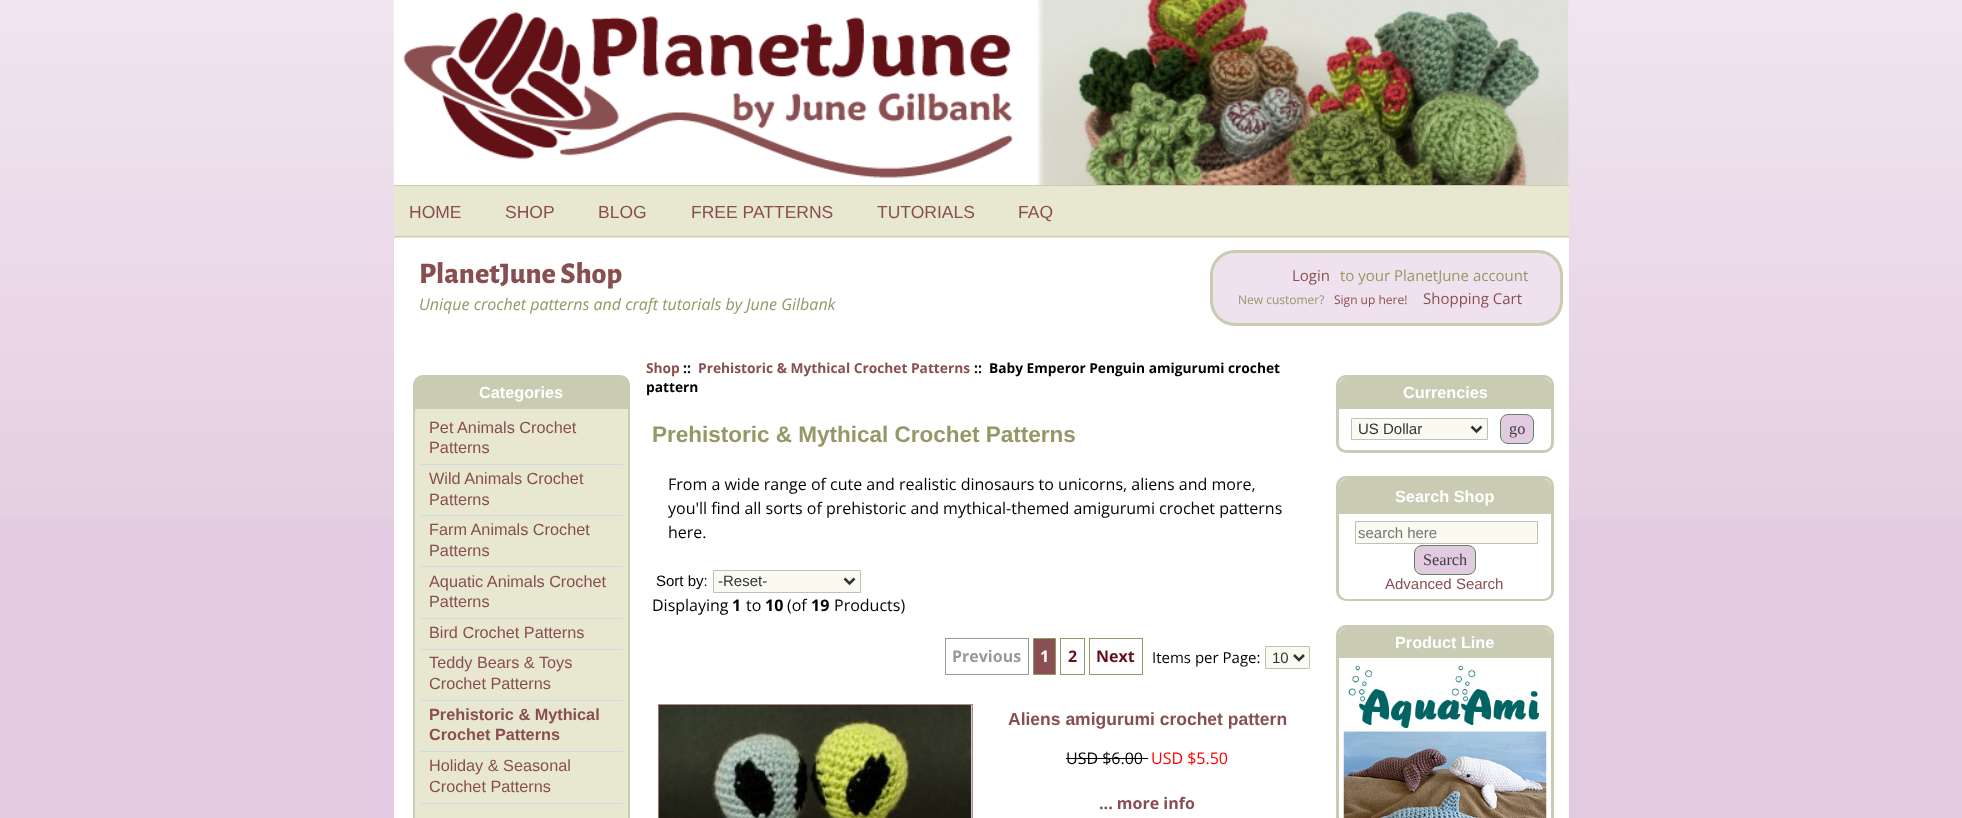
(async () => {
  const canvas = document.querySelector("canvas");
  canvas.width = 1962;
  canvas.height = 818;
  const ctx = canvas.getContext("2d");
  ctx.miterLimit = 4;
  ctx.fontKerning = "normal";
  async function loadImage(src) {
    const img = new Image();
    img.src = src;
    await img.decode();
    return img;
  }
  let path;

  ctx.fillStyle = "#e2cae0";
  ctx.fillRect(0, 0, 1962, 818);
  ctx.drawImage(await loadImage("img/1.png"), 0, 0, 1962, 519);
  ctx.fillStyle = "#ffffff";
  ctx.fillRect(394, 0, 1175, 818);
  ctx.drawImage(await loadImage("img/2.png"), 1037, 0, 532, 185);
  ctx.drawImage(await loadImage("img/3.png"), 393, 0, 620, 185);
  for (const [x, y, w, h, color] of [
    [394, 186, 1175, 52, "#e8e7d0"],
    [394, 185, 1175, 1, "#c9cbb3"],
    [394, 236, 1175, 1, "#c9cbb3"],
  ]) {
    ctx.fillStyle = color;
    ctx.fillRect(x, y, w, h);
  }
  ctx.fillStyle = "#efe2ee";
  ctx.beginPath();
  ctx.roundRect(1211.5, 251.5, 350, 73, 23.5);
  ctx.fill();
  ctx.strokeStyle = "#c9cbb3";
  ctx.lineWidth = 3;
  ctx.stroke();
  ctx.fillStyle = "#fafaf0";
  ctx.beginPath();
  ctx.rect(713.5, 570.5, 147, 22);
  ctx.fill();
  ctx.strokeStyle = "#c1c0b5";
  ctx.lineWidth = 1;
  ctx.stroke();
  path = new Path2D("M844.5 578.5L849.5 583.5L854.5 578.5");
  ctx.strokeStyle = "#333333";
  ctx.lineWidth = 2.5;
  ctx.stroke(path);
  ctx.strokeStyle = "#999999";
  ctx.lineWidth = 1;
  ctx.strokeRect(945.5, 638.5, 83, 36);
  ctx.fillStyle = "#8a4f51";
  ctx.beginPath();
  ctx.rect(1033.5, 638.5, 22, 36);
  ctx.fill();
  ctx.strokeStyle = "#969766";
  ctx.stroke();
  ctx.strokeRect(1060.5, 638.5, 24, 36);
  ctx.strokeRect(1089.5, 638.5, 53, 36);
  ctx.fillStyle = "#fafaf0";
  ctx.beginPath();
  ctx.rect(1265.5, 646.5, 44, 22);
  ctx.fill();
  ctx.strokeStyle = "#c1c0b5";
  ctx.stroke();
  path = new Path2D("M1294 655L1299 660L1304 655");
  ctx.strokeStyle = "#333333";
  ctx.lineWidth = 2.5;
  ctx.stroke(path);
  ctx.strokeStyle = "#b18a8b";
  ctx.lineWidth = 1;
  ctx.strokeRect(658.5, 704.5, 314, 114);
  ctx.drawImage(await loadImage("img/4.png"), 658, 705, 314, 113);
  ctx.fillStyle = "#000000";
  ctx.fillRect(1066, 758, 82, 1);
  ctx.beginPath();
  ctx.roundRect(414.5, 376.5, 214, 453, 8.5);
  ctx.strokeStyle = "#c9cbb3";
  ctx.lineWidth = 3;
  ctx.stroke();
  ctx.fillStyle = "#c9cbb3";
  ctx.beginPath();
  ctx.roundRect(415, 378, 213, 31, [8, 8, 0, 0]);
  ctx.fill();
  for (const [x, y, w, h, color] of [
    [415, 409, 213, 409, "#e8e7d0"],
    [420, 464, 203, 1, "#d3d9e3"],
    [420, 515, 203, 1, "#d3d9e3"],
    [420, 566, 203, 1, "#d3d9e3"],
    [420, 618, 203, 1, "#d3d9e3"],
    [420, 649, 203, 1, "#d3d9e3"],
    [420, 700, 203, 1, "#d3d9e3"],
    [420, 751, 203, 1, "#d3d9e3"],
    [420, 803, 203, 1, "#d3d9e3"],
  ]) {
    ctx.fillStyle = color;
    ctx.fillRect(x, y, w, h);
  }
  ctx.beginPath();
  ctx.roundRect(1337.5, 376.5, 215, 75, 8.5);
  ctx.stroke();
  ctx.fillStyle = "#c9cbb3";
  ctx.beginPath();
  ctx.roundRect(1339, 378, 212, 31, [8, 8, 0, 0]);
  ctx.fill();
  ctx.fillStyle = "#ffffff";
  ctx.beginPath();
  ctx.roundRect(1339, 409, 212, 41, [0, 0, 8, 8]);
  ctx.fill();
  ctx.fillStyle = "#fafaf0";
  ctx.beginPath();
  ctx.rect(1351.5, 418.5, 136, 21);
  ctx.fill();
  ctx.strokeStyle = "#c1c0b5";
  ctx.lineWidth = 1;
  ctx.stroke();
  path = new Path2D("M1471.5 426.5L1476.5 431.5L1481.5 426.5");
  ctx.strokeStyle = "#333333";
  ctx.lineWidth = 2.5;
  ctx.stroke(path);
  ctx.fillStyle = "#e2cae0";
  ctx.beginPath();
  ctx.roundRect(1500.5, 414.5, 33, 29, 7.5);
  ctx.fill();
  ctx.strokeStyle = "#638263";
  ctx.lineWidth = 1;
  ctx.stroke();
  ctx.beginPath();
  ctx.roundRect(1337.5, 477.5, 215, 122, 8.5);
  ctx.strokeStyle = "#c9cbb3";
  ctx.lineWidth = 3;
  ctx.stroke();
  ctx.fillStyle = "#c9cbb3";
  ctx.beginPath();
  ctx.roundRect(1339, 479, 212, 35, [8, 8, 0, 0]);
  ctx.fill();
  ctx.fillStyle = "#ffffff";
  ctx.beginPath();
  ctx.roundRect(1339, 514, 212, 85, [0, 0, 8, 8]);
  ctx.fill();
  ctx.fillStyle = "#fafaf0";
  ctx.beginPath();
  ctx.rect(1355.5, 521.5, 182, 22);
  ctx.fill();
  ctx.strokeStyle = "#c1c0b5";
  ctx.lineWidth = 1;
  ctx.stroke();
  ctx.fillStyle = "#e2cae0";
  ctx.beginPath();
  ctx.roundRect(1414.5, 545.5, 61, 29, 7.5);
  ctx.fill();
  ctx.strokeStyle = "#638263";
  ctx.stroke();
  ctx.beginPath();
  ctx.roundRect(1337.5, 626.5, 215, 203, 8.5);
  ctx.strokeStyle = "#c9cbb3";
  ctx.lineWidth = 3;
  ctx.stroke();
  ctx.fillStyle = "#c9cbb3";
  ctx.beginPath();
  ctx.roundRect(1339, 628, 212, 30, [8, 8, 0, 0]);
  ctx.fill();
  ctx.drawImage(await loadImage("img/5.png"), 1343, 663, 204, 155);
  ctx.font = "17.5px Liberation Sans";
  ctx.fillStyle = "#894e50";
  for (const [text, x, y] of [
    ["HOME", 409, 218],
    ["SHOP", 505, 218],
    ["BLOG", 598, 218],
    ["FREE PATTERNS", 691, 218],
    ["TUTORIALS", 877, 218],
    ["FAQ", 1018, 218],
  ]) {
    ctx.fillText(text, x, y);
  }
  ctx.font = "800 30px Alegreya Sans";
  ctx.fillText("PlanetJune Shop", 419, 283);
  ctx.font = "italic 16px Open Sans";
  ctx.fillStyle = "#969766";
  ctx.fillText("Unique crochet patterns and craft tutorials by June Gilbank", 419, 310);
  ctx.font = "15px Open Sans";
  ctx.fillStyle = "#894e50";
  ctx.fillText("Login", 1292, 281);
  ctx.fillStyle = "#969766";
  ctx.fillText("to your PlanetJune account", 1340, 281);
  ctx.font = "12px Open Sans";
  ctx.fillText("New customer?", 1238, 304);
  ctx.fillStyle = "#894e50";
  ctx.fillText("Sign up here!", 1334, 304);
  ctx.font = "15px Open Sans";
  ctx.fillText("Shopping Cart", 1423, 304);
  ctx.font = "bold 13.75px Open Sans";
  ctx.fillText("Shop", 646, 373);
  ctx.fillStyle = "#000000";
  ctx.fillText("::", 683, 373);
  ctx.fillStyle = "#894e50";
  ctx.fillText("Prehistoric & Mythical Crochet Patterns", 698, 373);
  ctx.fillStyle = "#000000";
  ctx.fillText("::  Baby Emperor Penguin amigurumi crochet", 974, 373);
  ctx.fillText("pattern", 646, 392);
  ctx.font = "bold 22.5px Liberation Sans";
  ctx.fillStyle = "#969766";
  ctx.fillText("Prehistoric & Mythical Crochet Patterns", 652, 442);
  ctx.font = "16px Open Sans";
  ctx.fillStyle = "#000000";
  for (const [text, x, y] of [
    ["From a wide range of cute and realistic dinosaurs to unicorns, aliens and more,", 668, 490],
    ["you'll find all sorts of prehistoric and mythical-themed amigurumi crochet patterns", 668, 514],
    ["here.", 668, 538],
  ]) {
    ctx.fillText(text, x, y);
  }
  ctx.font = "15px Liberation Sans";
  ctx.fillText("Sort by:", 656, 586);
  ctx.fillStyle = "#333333";
  ctx.fillText("-Reset-", 718, 586);
  ctx.font = "16px Open Sans";
  ctx.fillStyle = "#000000";
  ctx.fillText("Displaying", 652, 611);
  ctx.font = "bold 16px Open Sans";
  ctx.fillText("1", 732, 611);
  ctx.font = "16px Open Sans";
  ctx.fillText("to", 746, 611);
  ctx.font = "bold 16px Open Sans";
  ctx.fillText("10", 765, 611);
  ctx.font = "16px Open Sans";
  ctx.fillText("(of", 787, 611);
  ctx.font = "bold 16px Open Sans";
  ctx.fillText("19", 811, 611);
  ctx.font = "16px Open Sans";
  ctx.fillText("Products)", 834, 611);
  ctx.font = "bold 16px Open Sans";
  ctx.fillStyle = "#999999";
  ctx.fillText("Previous", 952, 662);
  ctx.fillStyle = "#ffffff";
  ctx.fillText("1", 1040, 662);
  ctx.fillStyle = "#621217";
  ctx.fillText("2", 1068, 662);
  ctx.fillText("Next", 1096, 662);
  ctx.font = "15px Open Sans";
  ctx.fillStyle = "#000000";
  ctx.fillText("Items per Page:", 1152, 663);
  ctx.font = "15px Liberation Sans";
  ctx.fillStyle = "#333333";
  ctx.fillText("10", 1272, 663);
  ctx.font = "bold 17.5px Liberation Sans";
  ctx.fillStyle = "#894e50";
  ctx.fillText("Aliens amigurumi crochet pattern", 1008, 725);
  ctx.font = "16px Open Sans";
  ctx.fillStyle = "#000000";
  ctx.fillText("USD $6.00", 1066, 764);
  ctx.fillStyle = "#ff0000";
  ctx.fillText("USD $5.50", 1151, 764);
  ctx.font = "bold 16px Open Sans";
  ctx.fillStyle = "#894e50";
  ctx.fillText("... more info", 1099, 809);
  ctx.font = "bold 16.25px Liberation Sans";
  ctx.fillStyle = "#ffffff";
  ctx.fillText("Categories", 479, 398);
  ctx.font = "16.25px Liberation Sans";
  ctx.fillStyle = "#894e50";
  for (const [text, x, y] of [
    ["Pet Animals Crochet", 429, 433],
    ["Patterns", 429, 453],
    ["Wild Animals Crochet", 429, 484],
    ["Patterns", 429, 505],
    ["Farm Animals Crochet", 429, 535],
    ["Patterns", 429, 556],
    ["Aquatic Animals Crochet", 429, 587],
    ["Patterns", 429, 607],
    ["Bird Crochet Patterns", 429, 638],
    ["Teddy Bears & Toys", 429, 668],
    ["Crochet Patterns", 429, 689],
  ]) {
    ctx.fillText(text, x, y);
  }
  ctx.font = "bold 16.25px Liberation Sans";
  ctx.fillText("Prehistoric & Mythical", 429, 720);
  ctx.fillText("Crochet Patterns", 429, 740);
  ctx.font = "16.25px Liberation Sans";
  ctx.fillText("Holiday & Seasonal", 429, 771);
  ctx.fillText("Crochet Patterns", 429, 792);
  ctx.font = "bold 16.25px Liberation Sans";
  ctx.fillStyle = "#ffffff";
  ctx.fillText("Currencies", 1403, 398);
  ctx.font = "15px Liberation Sans";
  ctx.fillStyle = "#333333";
  ctx.fillText("US Dollar", 1358, 434);
  ctx.font = "16.25px Liberation Serif";
  ctx.fillStyle = "#404040";
  ctx.fillText("go", 1509, 434);
  ctx.font = "bold 16.25px Liberation Sans";
  ctx.fillStyle = "#ffffff";
  ctx.fillText("Search Shop", 1395, 502);
  ctx.font = "15px Liberation Sans";
  ctx.fillStyle = "#757575";
  ctx.fillText("search here", 1358, 538);
  ctx.font = "16.25px Liberation Serif";
  ctx.fillStyle = "#404040";
  ctx.fillText("Search", 1423, 565);
  ctx.font = "15px Liberation Sans";
  ctx.fillStyle = "#894e50";
  ctx.fillText("Advanced Search", 1385, 589);
  ctx.font = "bold 16.25px Liberation Sans";
  ctx.fillStyle = "#ffffff";
  ctx.fillText("Product Line", 1395, 648);
})();
